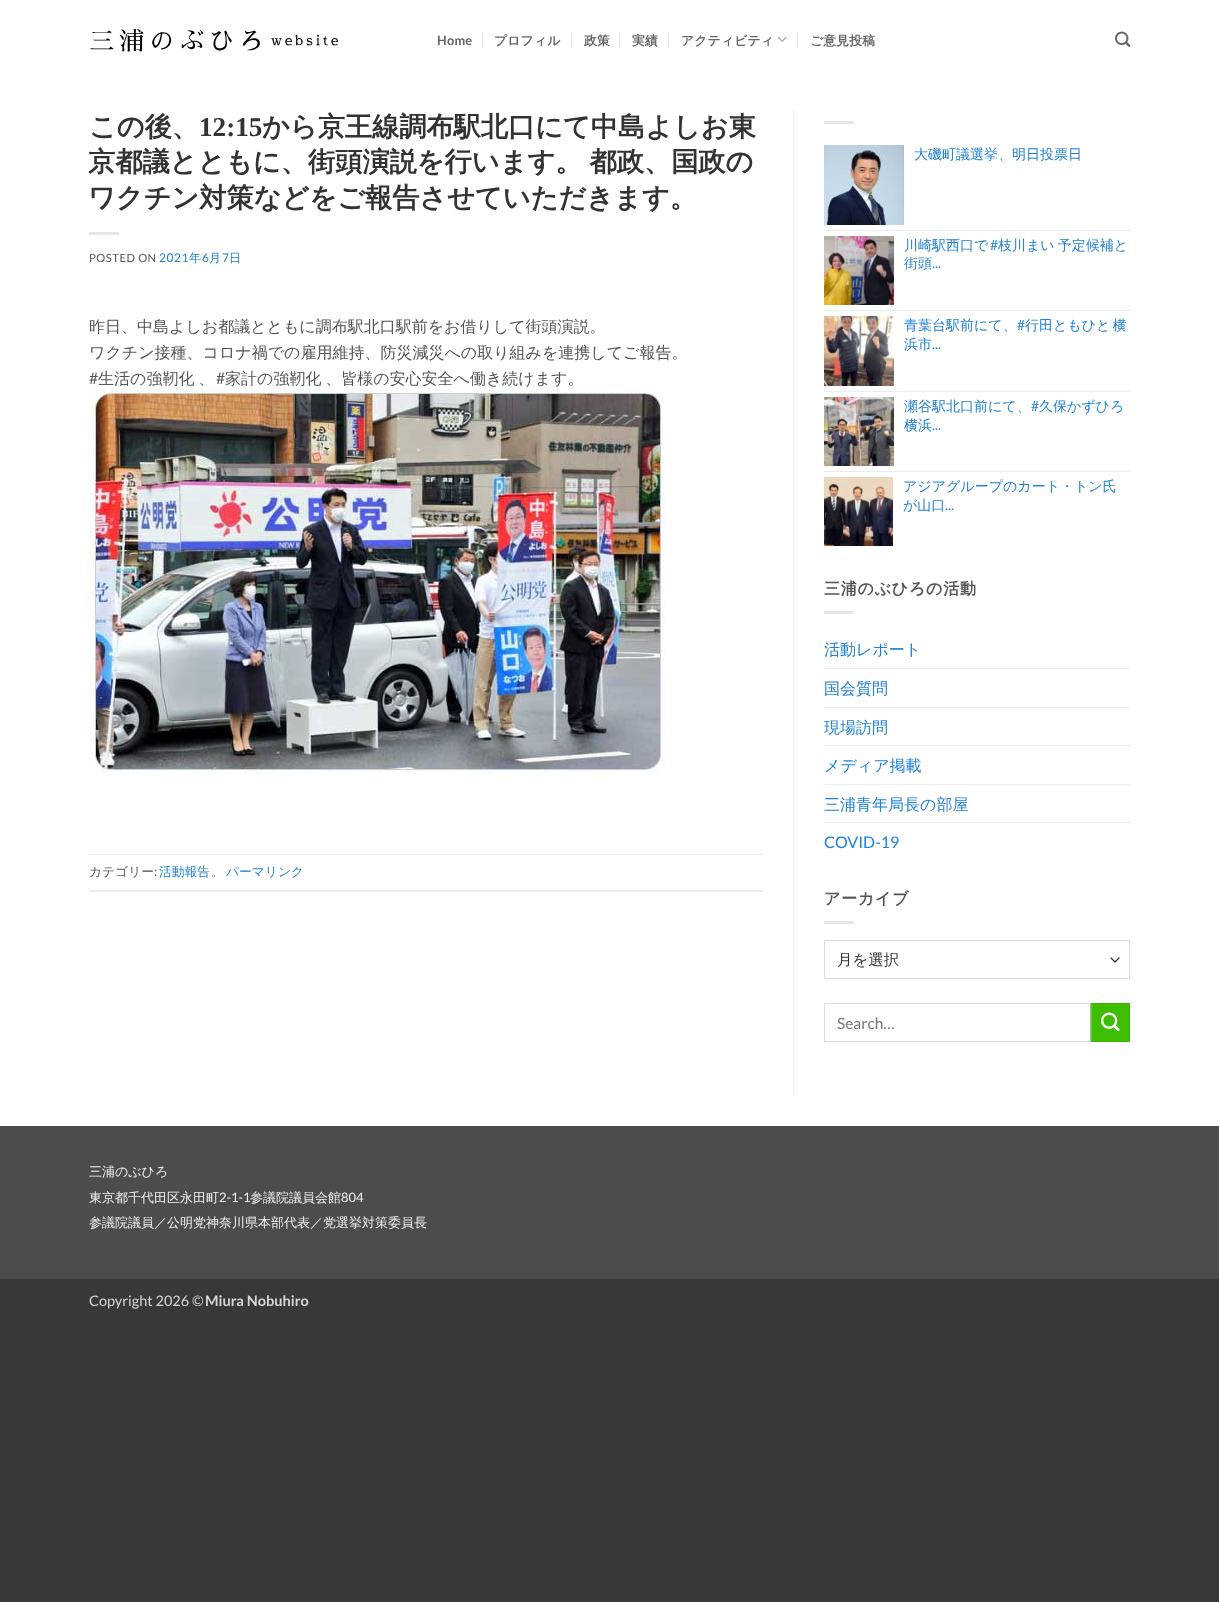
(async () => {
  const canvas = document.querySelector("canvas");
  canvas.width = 1219;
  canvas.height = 1602;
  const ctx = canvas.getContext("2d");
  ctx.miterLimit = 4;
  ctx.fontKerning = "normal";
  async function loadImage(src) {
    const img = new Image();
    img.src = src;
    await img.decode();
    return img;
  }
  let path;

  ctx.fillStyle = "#383838";
  ctx.fillRect(0, 0, 1219, 1602);
  ctx.fillStyle = "#ffffff";
  ctx.fillRect(0, 0, 1219, 1126);
  ctx.drawImage(await loadImage("img/1.png"), 90, 29, 248, 23);
  for (const [x, y, w, h, color] of [
    [482, 33, 1, 15, "#e6e6e6"],
    [571, 33, 1, 15, "#e6e6e6"],
    [619, 33, 1, 15, "#e6e6e6"],
    [668, 33, 1, 15, "#e6e6e6"],
  ]) {
    ctx.fillStyle = color;
    ctx.fillRect(x, y, w, h);
  }
  ctx.drawImage(await loadImage("img/2.png"), 777, 36, 10, 6);
  ctx.fillRect(797, 33, 1, 15);
  ctx.drawImage(await loadImage("img/3.png"), 1115, 31, 16, 16);
  ctx.fillRect(89, 232, 30, 3);
  ctx.drawImage(await loadImage("img/4.png"), 89, 390, 576, 384);
  for (const [x, y, w, h, color] of [
    [89, 854, 674, 1, "#ececec"],
    [89, 890, 674, 2, "#ececec"],
    [793, 110, 1, 986, "#ececec"],
    [824, 121, 30, 3, "#e6e6e6"],
  ]) {
    ctx.fillStyle = color;
    ctx.fillRect(x, y, w, h);
  }
  ctx.drawImage(await loadImage("img/5.png"), 824, 145, 80, 80);
  ctx.fillStyle = "#ececec";
  ctx.fillRect(824, 230, 306, 1);
  ctx.drawImage(await loadImage("img/6.png"), 824, 236, 70, 69);
  ctx.fillRect(824, 310, 306, 1);
  ctx.drawImage(await loadImage("img/7.png"), 824, 316, 70, 70);
  ctx.fillRect(824, 391, 306, 1);
  ctx.drawImage(await loadImage("img/8.png"), 824, 397, 70, 69);
  ctx.fillRect(824, 471, 306, 1);
  ctx.drawImage(await loadImage("img/9.png"), 824, 477, 69, 69);
  for (const [x, y, w, h, color] of [
    [824, 611, 30, 3, "#e6e6e6"],
    [824, 668, 306, 1, "#ececec"],
    [824, 707, 306, 1, "#ececec"],
    [824, 745, 306, 1, "#ececec"],
    [824, 784, 306, 1, "#ececec"],
    [824, 822, 306, 1, "#ececec"],
    [824, 921, 30, 3, "#e6e6e6"],
  ]) {
    ctx.fillStyle = color;
    ctx.fillRect(x, y, w, h);
  }
  path = new Path2D("M1111 958L1115 962L1119 958");
  ctx.strokeStyle = "#333333";
  ctx.lineWidth = 1.3;
  ctx.lineCap = "round";
  ctx.lineJoin = "round";
  ctx.stroke(path);
  ctx.strokeStyle = "#dddddd";
  ctx.lineWidth = 1;
  ctx.lineJoin = "miter";
  ctx.strokeRect(824.5, 940.5, 305, 38);
  ctx.strokeRect(824.5, 1003.5, 266, 38);
  ctx.fillStyle = "#3ebe02";
  ctx.beginPath();
  ctx.rect(1091.5, 1003.5, 38, 38);
  ctx.fill();
  ctx.strokeStyle = "#3bb502";
  ctx.stroke();
  ctx.drawImage(await loadImage("img/10.png"), 1101, 1012, 19, 20);
  ctx.fillStyle = "#4c4c4c";
  ctx.fillRect(0, 1127, 1219, 152);
  ctx.fillStyle = "#484848";
  ctx.fillRect(0, 1126, 1219, 1);
  ctx.letterSpacing = "0.25px";
  ctx.font = "bold 12.75px Lato";
  ctx.fillStyle = "#656565";
  ctx.fillText("Home", 437, 45);
  ctx.font = "bold 12.75px WenQuanYi Zen Hei";
  for (const [text, x, y] of [
    ["プロフィル", 494, 45],
    ["政策", 584, 45],
    ["実績", 632, 45],
    ["アクティビティ", 681, 45],
    ["ご意見投稿", 810, 45],
  ]) {
    ctx.fillText(text, x, y);
  }
  ctx.letterSpacing = "0px";
  ctx.font = "bold 27.2px WenQuanYi Zen Hei";
  ctx.fillStyle = "#333333";
  ctx.fillText("この後、", 89, 136);
  ctx.font = "bold 27.2px Liberation Serif";
  ctx.fillText("12:15", 199, 136);
  ctx.font = "bold 27.2px WenQuanYi Zen Hei";
  ctx.fillText("から京王線調布駅北口にて中島よしお東", 262, 136);
  ctx.wordSpacing = "-1px";
  ctx.fillText("京都議とともに、街頭演説を行います。 都政、国政の", 88, 171);
  ctx.wordSpacing = "0px";
  ctx.fillText("ワクチン対策などをご報告させていただきます。", 88, 207);
  ctx.letterSpacing = "0.5px";
  ctx.font = "11.25px Lato";
  ctx.fillStyle = "#555555";
  ctx.fillText("POSTED ON", 89, 262);
  ctx.font = "12px Lato";
  ctx.fillStyle = "#2081d6";
  ctx.fillText("2021", 159, 262);
  ctx.font = "500 12px WenQuanYi Zen Hei";
  ctx.fillText("年", 189, 262);
  ctx.font = "12px Lato";
  ctx.fillText("6", 202, 262);
  ctx.font = "500 12px WenQuanYi Zen Hei";
  ctx.fillText("月", 209, 262);
  ctx.font = "12px Lato";
  ctx.fillText("7", 222, 262);
  ctx.font = "500 12px WenQuanYi Zen Hei";
  ctx.fillText("日", 229, 262);
  ctx.letterSpacing = "0px";
  ctx.font = "500 16px WenQuanYi Zen Hei";
  ctx.fillStyle = "#555555";
  ctx.fillText("昨日、中島よしお都議とともに調布駅北口駅前をお借りして街頭演説。", 89, 332);
  ctx.fillText("ワクチン接種、コロナ禍での雇用維持、防災減災への取り組みを連携してご報告。", 89, 358);
  ctx.font = "16px Lato";
  ctx.fillText("#", 89, 384);
  ctx.wordSpacing = "-1px";
  ctx.font = "500 16px WenQuanYi Zen Hei";
  ctx.fillText("生活の強靭化 、", 98, 384);
  ctx.wordSpacing = "0px";
  ctx.font = "16px Lato";
  ctx.fillText("#", 216, 384);
  ctx.wordSpacing = "-1px";
  ctx.font = "500 16px WenQuanYi Zen Hei";
  ctx.fillText("家計の強靭化 、皆様の安心安全へ働き続けます。", 225, 384);
  ctx.wordSpacing = "0px";
  ctx.font = "500 12.75px WenQuanYi Zen Hei";
  ctx.fillText("カテゴリー", 89, 876);
  ctx.font = "12.75px Lato";
  ctx.fillText(":", 154, 876);
  ctx.font = "500 12.75px WenQuanYi Zen Hei";
  ctx.fillStyle = "#2081d6";
  ctx.fillText("活動報告", 159, 876);
  ctx.fillStyle = "#555555";
  ctx.fillText("。", 211, 876);
  ctx.fillStyle = "#2081d6";
  ctx.fillText("パーマリンク", 226, 876);
  ctx.font = "500 14px WenQuanYi Zen Hei";
  ctx.fillText("大磯町議選挙、明日投票日", 914, 159);
  ctx.fillText("川崎駅西口で", 904, 250);
  ctx.font = "14px Lato";
  ctx.fillText("#", 990, 250);
  ctx.wordSpacing = "-1px";
  ctx.font = "500 14px WenQuanYi Zen Hei";
  ctx.fillText("枝川まい 予定候補と", 998, 250);
  ctx.wordSpacing = "0px";
  ctx.fillText("街頭", 904, 268);
  ctx.font = "14px Lato";
  ctx.fillText("...", 932, 268);
  ctx.font = "500 14px WenQuanYi Zen Hei";
  ctx.fillText("青葉台駅前にて、", 904, 330);
  ctx.font = "14px Lato";
  ctx.fillText("#", 1017, 330);
  ctx.wordSpacing = "-2px";
  ctx.font = "500 14px WenQuanYi Zen Hei";
  ctx.fillText("行田ともひと 横", 1025, 330);
  ctx.wordSpacing = "0px";
  ctx.fillText("浜市", 904, 349);
  ctx.font = "14px Lato";
  ctx.fillText("...", 932, 349);
  ctx.font = "500 14px WenQuanYi Zen Hei";
  ctx.fillText("瀬谷駅北口前にて、", 904, 411);
  ctx.font = "14px Lato";
  ctx.fillText("#", 1031, 411);
  ctx.font = "500 14px WenQuanYi Zen Hei";
  ctx.fillText("久保かずひろ", 1039, 411);
  ctx.fillText("横浜", 904, 430);
  ctx.font = "14px Lato";
  ctx.fillText("...", 932, 430);
  ctx.font = "500 14px WenQuanYi Zen Hei";
  ctx.fillText("アジアグループのカート・トン氏", 903, 491);
  ctx.fillText("が山口", 903, 510);
  ctx.font = "14px Lato";
  ctx.fillText("...", 945, 510);
  ctx.letterSpacing = "0.75px";
  ctx.font = "bold 16px WenQuanYi Zen Hei";
  ctx.fillStyle = "#555555";
  ctx.fillText("三浦のぶひろの活動", 824, 594);
  ctx.letterSpacing = "0px";
  ctx.font = "500 16px WenQuanYi Zen Hei";
  ctx.fillStyle = "#2081d6";
  for (const [text, x, y] of [
    ["活動レポート", 824, 655],
    ["国会質問", 824, 694],
    ["現場訪問", 824, 733],
    ["メディア掲載", 824, 771],
    ["三浦青年局長の部屋", 824, 810],
  ]) {
    ctx.fillText(text, x, y);
  }
  ctx.font = "16px Lato";
  ctx.fillText("COVID-19", 824, 848);
  ctx.letterSpacing = "0.75px";
  ctx.font = "bold 16px WenQuanYi Zen Hei";
  ctx.fillStyle = "#555555";
  ctx.fillText("アーカイブ", 824, 904);
  ctx.letterSpacing = "0px";
  ctx.font = "500 15.5px WenQuanYi Zen Hei";
  ctx.fillStyle = "#333333";
  ctx.fillText("月を選択", 837, 965);
  ctx.font = "15.5px Lato";
  ctx.fillStyle = "#757575";
  ctx.fillText("Search…", 837, 1029);
  ctx.font = "500 13px WenQuanYi Zen Hei";
  ctx.fillStyle = "#f1f1f1";
  ctx.fillText("三浦のぶひろ", 89, 1176);
  ctx.fillText("東京都千代田区永田町", 89, 1202);
  ctx.font = "13px Lato";
  ctx.fillText("2-1-1", 219, 1202);
  ctx.font = "500 13px WenQuanYi Zen Hei";
  ctx.fillText("参議院議員会館", 250, 1202);
  ctx.font = "13px Lato";
  ctx.fillText("804", 341, 1202);
  ctx.font = "500 13px WenQuanYi Zen Hei";
  ctx.fillText("参議院議員／公明党神奈川県本部代表／党選挙対策委員長", 89, 1227);
  ctx.font = "14.5px Lato";
  ctx.fillStyle = "#d7d7d7";
  ctx.fillText("Copyright 2026 ©", 89, 1306);
  ctx.font = "bold 14.5px Lato";
  ctx.fillText("Miura Nobuhiro", 205, 1306);
})();
